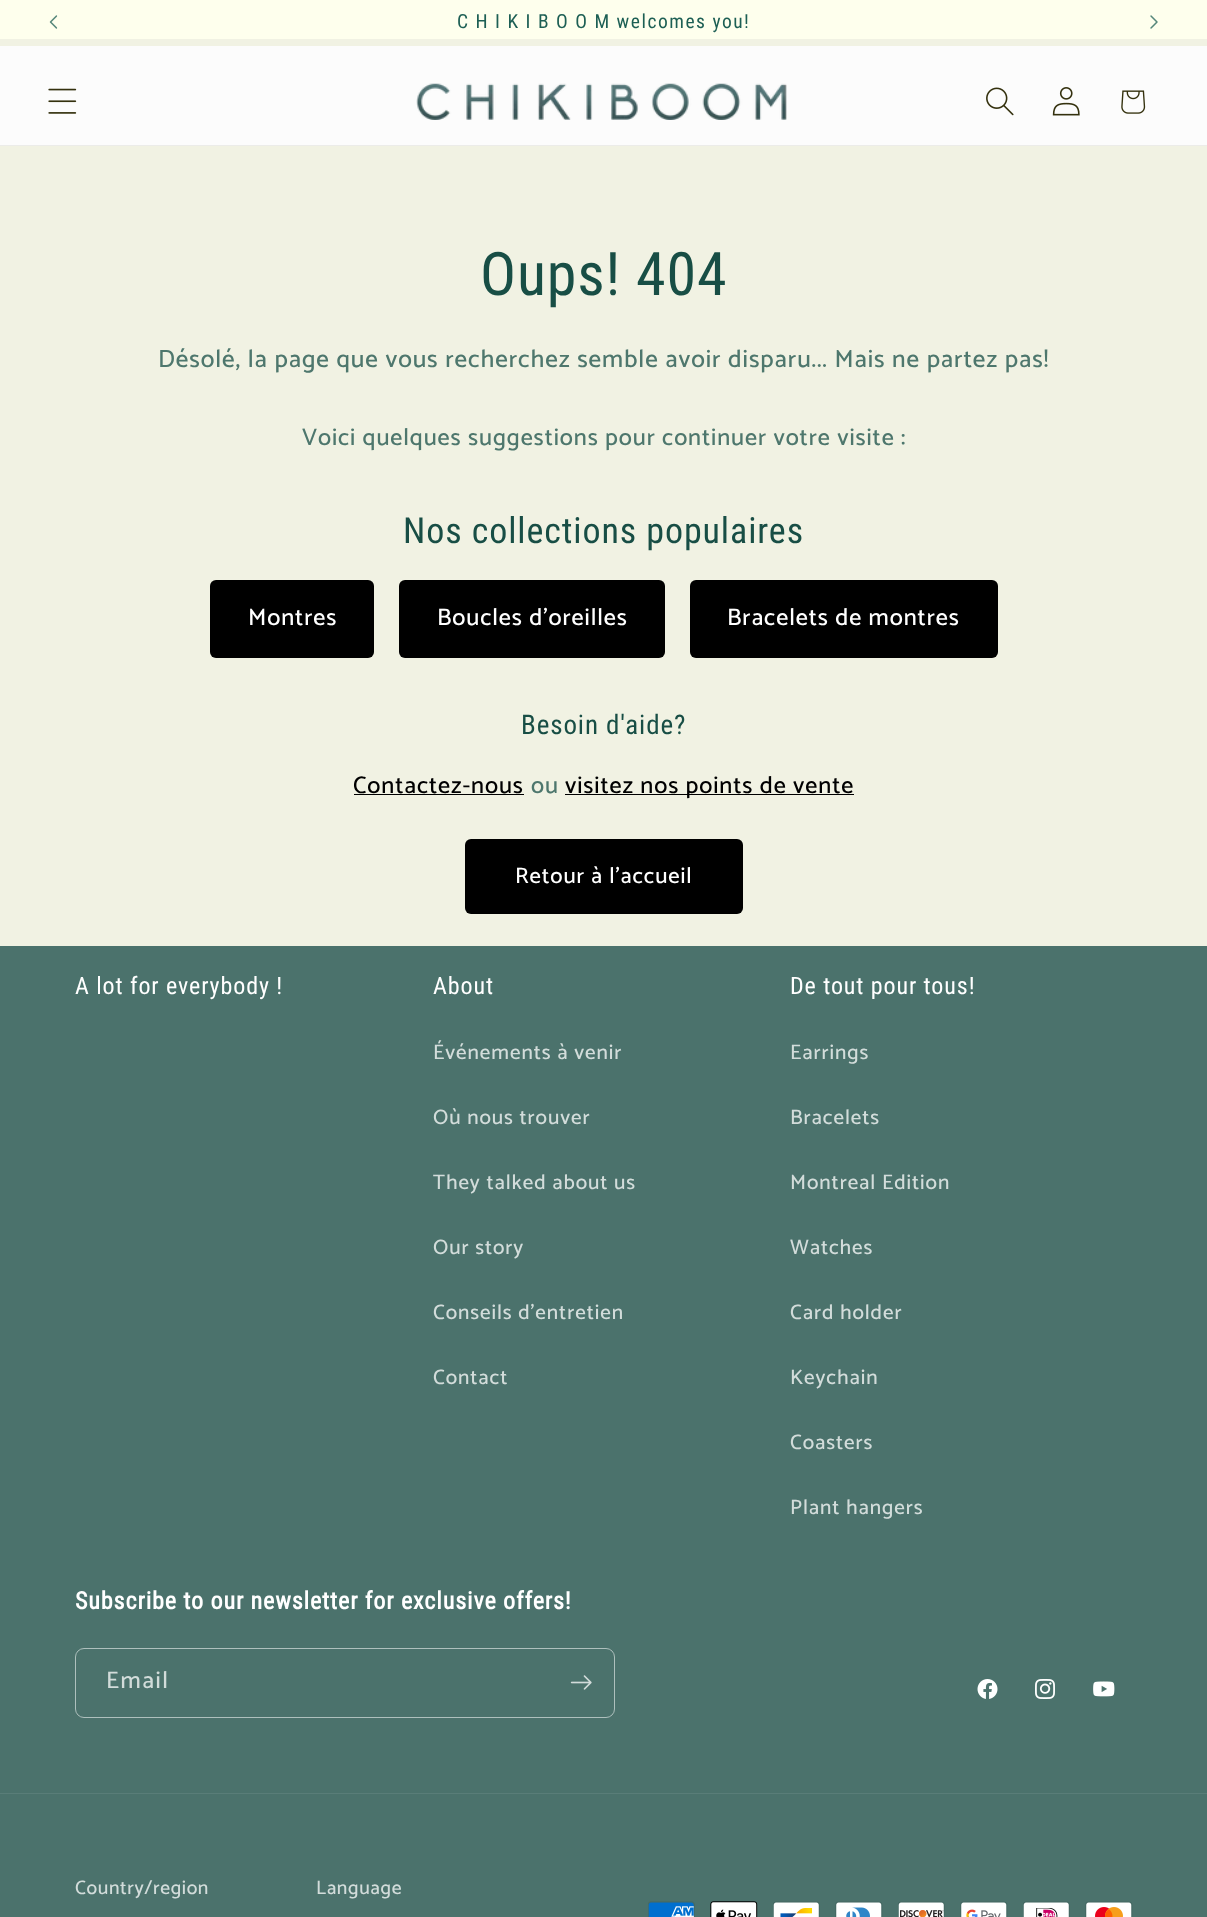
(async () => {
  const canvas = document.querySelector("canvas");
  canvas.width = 1207;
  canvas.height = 1917;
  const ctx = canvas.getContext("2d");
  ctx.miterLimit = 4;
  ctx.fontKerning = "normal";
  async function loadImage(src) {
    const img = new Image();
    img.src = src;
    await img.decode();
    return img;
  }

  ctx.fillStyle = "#f1f2e3";
  ctx.fillRect(0, 0, 1207, 1917);
  ctx.fillStyle = "#feffed";
  ctx.fillRect(0, 0, 1207, 39);
  ctx.drawImage(await loadImage("img/1.png"), 49, 15, 9, 14);
  ctx.drawImage(await loadImage("img/2.png"), 1150, 15, 8, 14);
  ctx.fillStyle = "#fcfcfc";
  ctx.fillRect(0, 46, 1207, 99);
  ctx.fillStyle = "#ecece9";
  ctx.fillRect(0, 145, 1207, 1);
  ctx.drawImage(await loadImage("img/3.png"), 48, 88, 29, 26);
  ctx.drawImage(await loadImage("img/4.png"), 416, 83, 371, 37);
  ctx.drawImage(await loadImage("img/5.png"), 986, 87, 28, 29);
  ctx.drawImage(await loadImage("img/6.png"), 1052, 87, 28, 29);
  ctx.drawImage(await loadImage("img/7.png"), 1121, 90, 25, 24);
  ctx.fillStyle = "#000000";
  ctx.beginPath();
  ctx.roundRect(210, 580, 164, 78, 6);
  ctx.fill();
  ctx.beginPath();
  ctx.roundRect(399, 580, 266, 78, 6);
  ctx.fill();
  ctx.beginPath();
  ctx.roundRect(690, 580, 308, 78, 6);
  ctx.fill();
  ctx.fillRect(354, 794, 170, 1);
  ctx.fillRect(565, 794, 289, 1);
  ctx.beginPath();
  ctx.roundRect(465, 839, 278, 75, 6);
  ctx.fill();
  ctx.fillStyle = "#4b726c";
  ctx.fillRect(0, 946, 1207, 971);
  ctx.beginPath();
  ctx.roundRect(75.5, 1648.5, 539, 69, 8.5);
  ctx.strokeStyle = "#aec0bd";
  ctx.stroke();
  ctx.drawImage(await loadImage("img/8.png"), 570, 1675, 22, 15);
  ctx.drawImage(await loadImage("img/9.png"), 977, 1679, 21, 20);
  ctx.drawImage(await loadImage("img/10.png"), 1035, 1679, 20, 20);
  ctx.drawImage(await loadImage("img/11.png"), 1093, 1681, 22, 16);
  ctx.fillStyle = "#597d78";
  ctx.fillRect(0, 1793, 1207, 1);
  ctx.drawImage(await loadImage("img/12.png"), 648, 1901, 47, 16);
  ctx.drawImage(await loadImage("img/13.png"), 710, 1901, 48, 16);
  ctx.drawImage(await loadImage("img/14.png"), 773, 1901, 47, 16);
  ctx.drawImage(await loadImage("img/15.png"), 835, 1901, 48, 16);
  ctx.drawImage(await loadImage("img/16.png"), 898, 1901, 47, 16);
  ctx.drawImage(await loadImage("img/17.png"), 960, 1901, 48, 16);
  ctx.drawImage(await loadImage("img/18.png"), 1023, 1901, 47, 16);
  ctx.drawImage(await loadImage("img/19.png"), 1085, 1901, 48, 16);
  ctx.letterSpacing = "1.5px";
  ctx.font = "19.5px Roboto Condensed";
  ctx.fillStyle = "#1d5f54";
  ctx.fillText("C H I K I B O O M welcomes you!", 457, 28);
  ctx.letterSpacing = "0.9px";
  ctx.font = "60px Roboto Condensed";
  ctx.fillStyle = "#184e45";
  ctx.fillText("Oups! 404", 480, 295);
  ctx.font = "500 25px Catamaran";
  ctx.fillStyle = "#4e776d";
  ctx.fillText("Désolé, la page que vous recherchez semble avoir disparu... Mais ne partez pas!", 158, 367);
  ctx.font = "500 24px Catamaran";
  ctx.fillText("Voici quelques suggestions pour continuer votre visite :", 302, 445);
  ctx.font = "36px Roboto Condensed";
  ctx.fillStyle = "#184e45";
  ctx.fillText("Nos collections populaires", 403, 543);
  ctx.font = "500 24px Catamaran";
  ctx.fillStyle = "#ffffff";
  for (const [text, x, y] of [
    ["Montres", 248, 625],
    ["Boucles d'oreilles", 437, 625],
    ["Bracelets de montres", 727, 625],
  ]) {
    ctx.fillText(text, x, y);
  }
  ctx.font = "27px Roboto Condensed";
  ctx.fillStyle = "#184e45";
  ctx.fillText("Besoin d'aide?", 521, 734);
  ctx.font = "500 24px Catamaran";
  ctx.fillStyle = "#000000";
  ctx.fillText("Contactez-nous", 353, 793);
  ctx.fillStyle = "#4e776d";
  ctx.fillText("ou", 531, 793);
  ctx.fillStyle = "#000000";
  ctx.fillText("visitez nos points de vente", 565, 793);
  ctx.font = "500 22.5px Catamaran";
  ctx.fillStyle = "#ffffff";
  ctx.fillText("Retour à l'accueil", 515, 883);
  ctx.font = "24px Roboto Condensed";
  ctx.fillText("A lot for everybody !", 75, 994);
  ctx.fillText("About", 433, 994);
  ctx.font = "500 21px Catamaran";
  ctx.fillStyle = "#d2dcda";
  for (const [text, x, y] of [
    ["Événements à venir", 433, 1059],
    ["Où nous trouver", 433, 1124],
    ["They talked about us", 433, 1189],
    ["Our story", 433, 1254],
    ["Conseils d'entretien", 433, 1319],
    ["Contact", 433, 1384],
  ]) {
    ctx.fillText(text, x, y);
  }
  ctx.font = "24px Roboto Condensed";
  ctx.fillStyle = "#ffffff";
  ctx.fillText("De tout pour tous!", 790, 994);
  ctx.font = "500 21px Catamaran";
  ctx.fillStyle = "#d2dcda";
  for (const [text, x, y] of [
    ["Earrings", 790, 1059],
    ["Bracelets", 790, 1124],
    ["Montreal Edition", 790, 1189],
    ["Watches", 790, 1254],
    ["Card holder", 790, 1319],
    ["Keychain", 790, 1384],
    ["Coasters", 790, 1449],
    ["Plant hangers", 790, 1514],
  ]) {
    ctx.fillText(text, x, y);
  }
  ctx.font = "bold 24px Roboto Condensed";
  ctx.fillStyle = "#ffffff";
  ctx.fillText("Subscribe to our newsletter for exclusive offers!", 75, 1609);
  ctx.letterSpacing = "1.5px";
  ctx.font = "500 24px Catamaran";
  ctx.fillStyle = "#d2dcda";
  ctx.fillText("Email", 106, 1688);
  ctx.letterSpacing = "0.6px";
  ctx.font = "500 19.5px Catamaran";
  ctx.fillText("Country/region", 75, 1894);
  ctx.fillText("Language", 316, 1894);
})();
